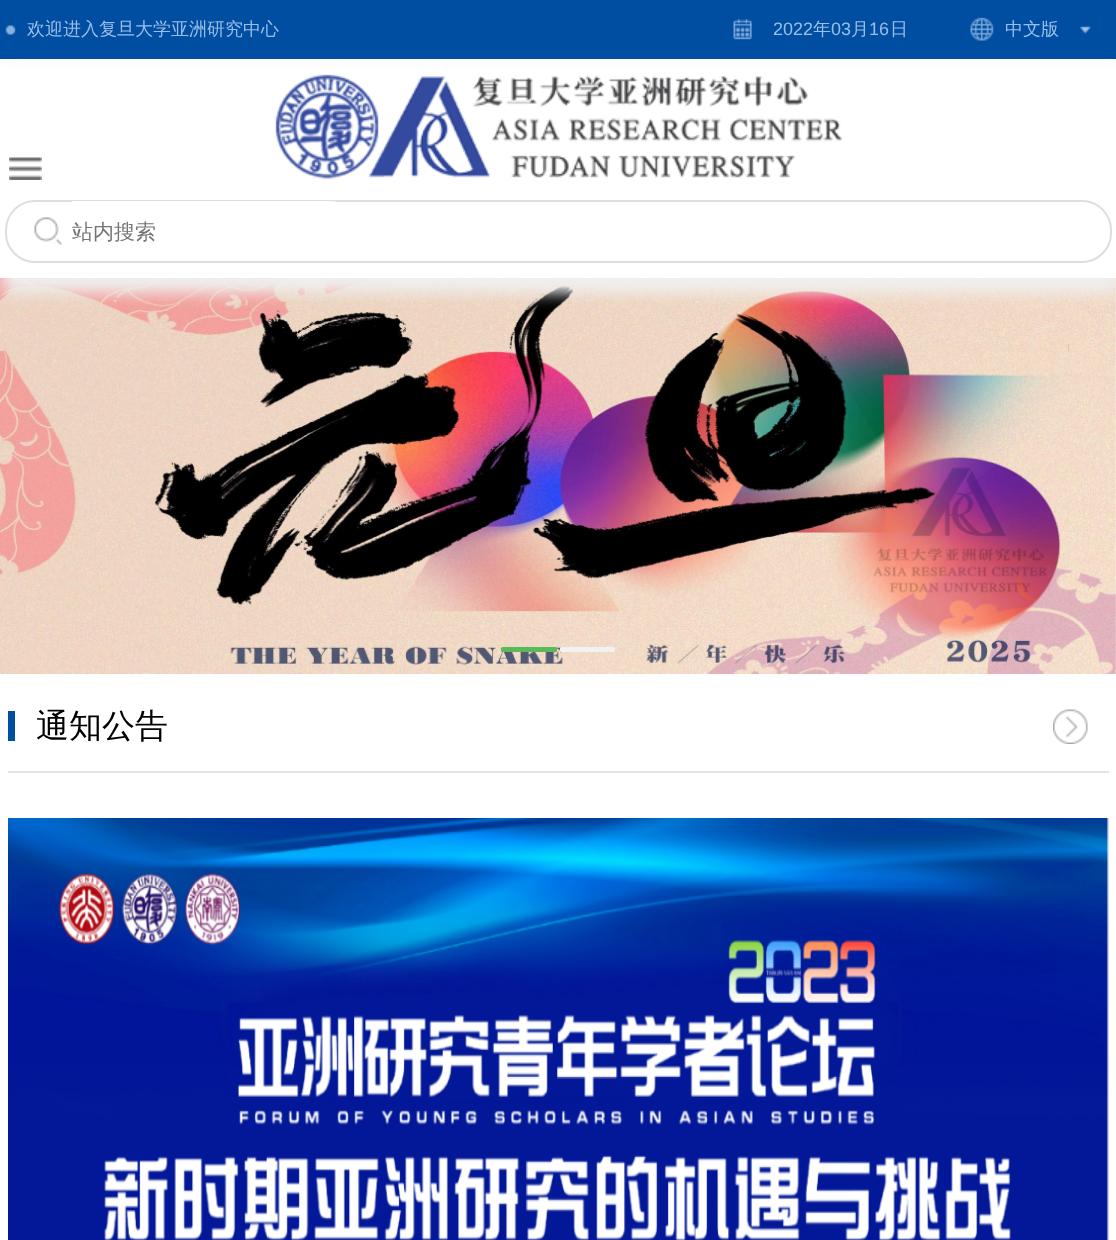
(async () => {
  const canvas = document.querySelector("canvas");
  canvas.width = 1116;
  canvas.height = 1240;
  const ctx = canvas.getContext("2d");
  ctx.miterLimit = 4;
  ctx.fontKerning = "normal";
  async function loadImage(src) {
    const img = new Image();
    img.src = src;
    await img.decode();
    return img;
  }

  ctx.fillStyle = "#ffffff";
  ctx.fillRect(0, 0, 1116, 1240);
  ctx.fillStyle = "#004ea2";
  ctx.fillRect(0, 0, 1116, 59);
  ctx.drawImage(await loadImage("img/1.png"), 5, 25, 11, 10);
  ctx.drawImage(await loadImage("img/2.png"), 733, 19, 19, 21);
  ctx.drawImage(await loadImage("img/3.png"), 970, 17, 24, 24);
  ctx.drawImage(await loadImage("img/4.png"), 1079, 25, 12, 9);
  ctx.drawImage(await loadImage("img/8.png"), 0, 278, 1116, 396);
  ctx.fillStyle = "#efefef";
  ctx.filter = "blur(7.5px)";
  ctx.beginPath();
  ctx.rect(3, 74, 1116, 219);
  ctx.fill();
  ctx.filter = "none";
  ctx.fillStyle = "#ffffff";
  ctx.fillRect(0, 67, 1116, 211);
  ctx.drawImage(await loadImage("img/5.png"), 9, 157, 33, 23);
  ctx.drawImage(await loadImage("img/6.png"), 275, 74, 567, 105);
  ctx.beginPath();
  ctx.roundRect(6, 201, 1105, 61, 29);
  ctx.strokeStyle = "#dedede";
  ctx.lineWidth = 2;
  ctx.stroke();
  ctx.drawImage(await loadImage("img/7.png"), 34, 217, 28, 28);
  ctx.beginPath();
  ctx.roundRect(72, 201, 288, 60, [0, 30, 30, 0]);
  ctx.fill();
  ctx.fillStyle = "#5cb958";
  ctx.beginPath();
  ctx.roundRect(501, 647, 56, 5, 1.5);
  ctx.fill();
  ctx.fillStyle = "#f1f2f4";
  ctx.beginPath();
  ctx.roundRect(560, 647, 55, 5, 1.5);
  ctx.fill();
  ctx.fillStyle = "#e3e3e3";
  ctx.fillRect(8, 771, 1101, 2);
  ctx.fillStyle = "#004ea2";
  ctx.fillRect(8, 711, 7, 30);
  ctx.drawImage(await loadImage("img/9.png"), 1053, 709, 35, 35);
  ctx.drawImage(await loadImage("img/10.png"), 8, 818, 1101, 422);
  ctx.font = "500 18px WenQuanYi Zen Hei";
  ctx.fillStyle = "#9abee9";
  ctx.fillText("欢迎进入复旦大学亚洲研究中心", 27, 35);
  ctx.font = "18px Liberation Sans";
  ctx.fillText("2022", 773, 35);
  ctx.font = "500 18px WenQuanYi Zen Hei";
  ctx.fillText("年", 813, 35);
  ctx.font = "18px Liberation Sans";
  ctx.fillText("03", 831, 35);
  ctx.font = "500 18px WenQuanYi Zen Hei";
  ctx.fillText("月", 851, 35);
  ctx.font = "18px Liberation Sans";
  ctx.fillText("16", 869, 35);
  ctx.font = "500 18px WenQuanYi Zen Hei";
  ctx.fillText("日", 890, 35);
  ctx.fillText("中文版", 1005, 35);
  ctx.save();
  ctx.beginPath();
  ctx.rect(72, 219, 288, 27);
  ctx.clip();
  ctx.font = "500 21px WenQuanYi Zen Hei";
  ctx.fillStyle = "#757575";
  ctx.fillText("站内搜索", 72, 239);
  ctx.restore();
  ctx.font = "500 33px WenQuanYi Zen Hei";
  ctx.fillStyle = "#000000";
  ctx.fillText("通知公告", 36, 737);
})();
